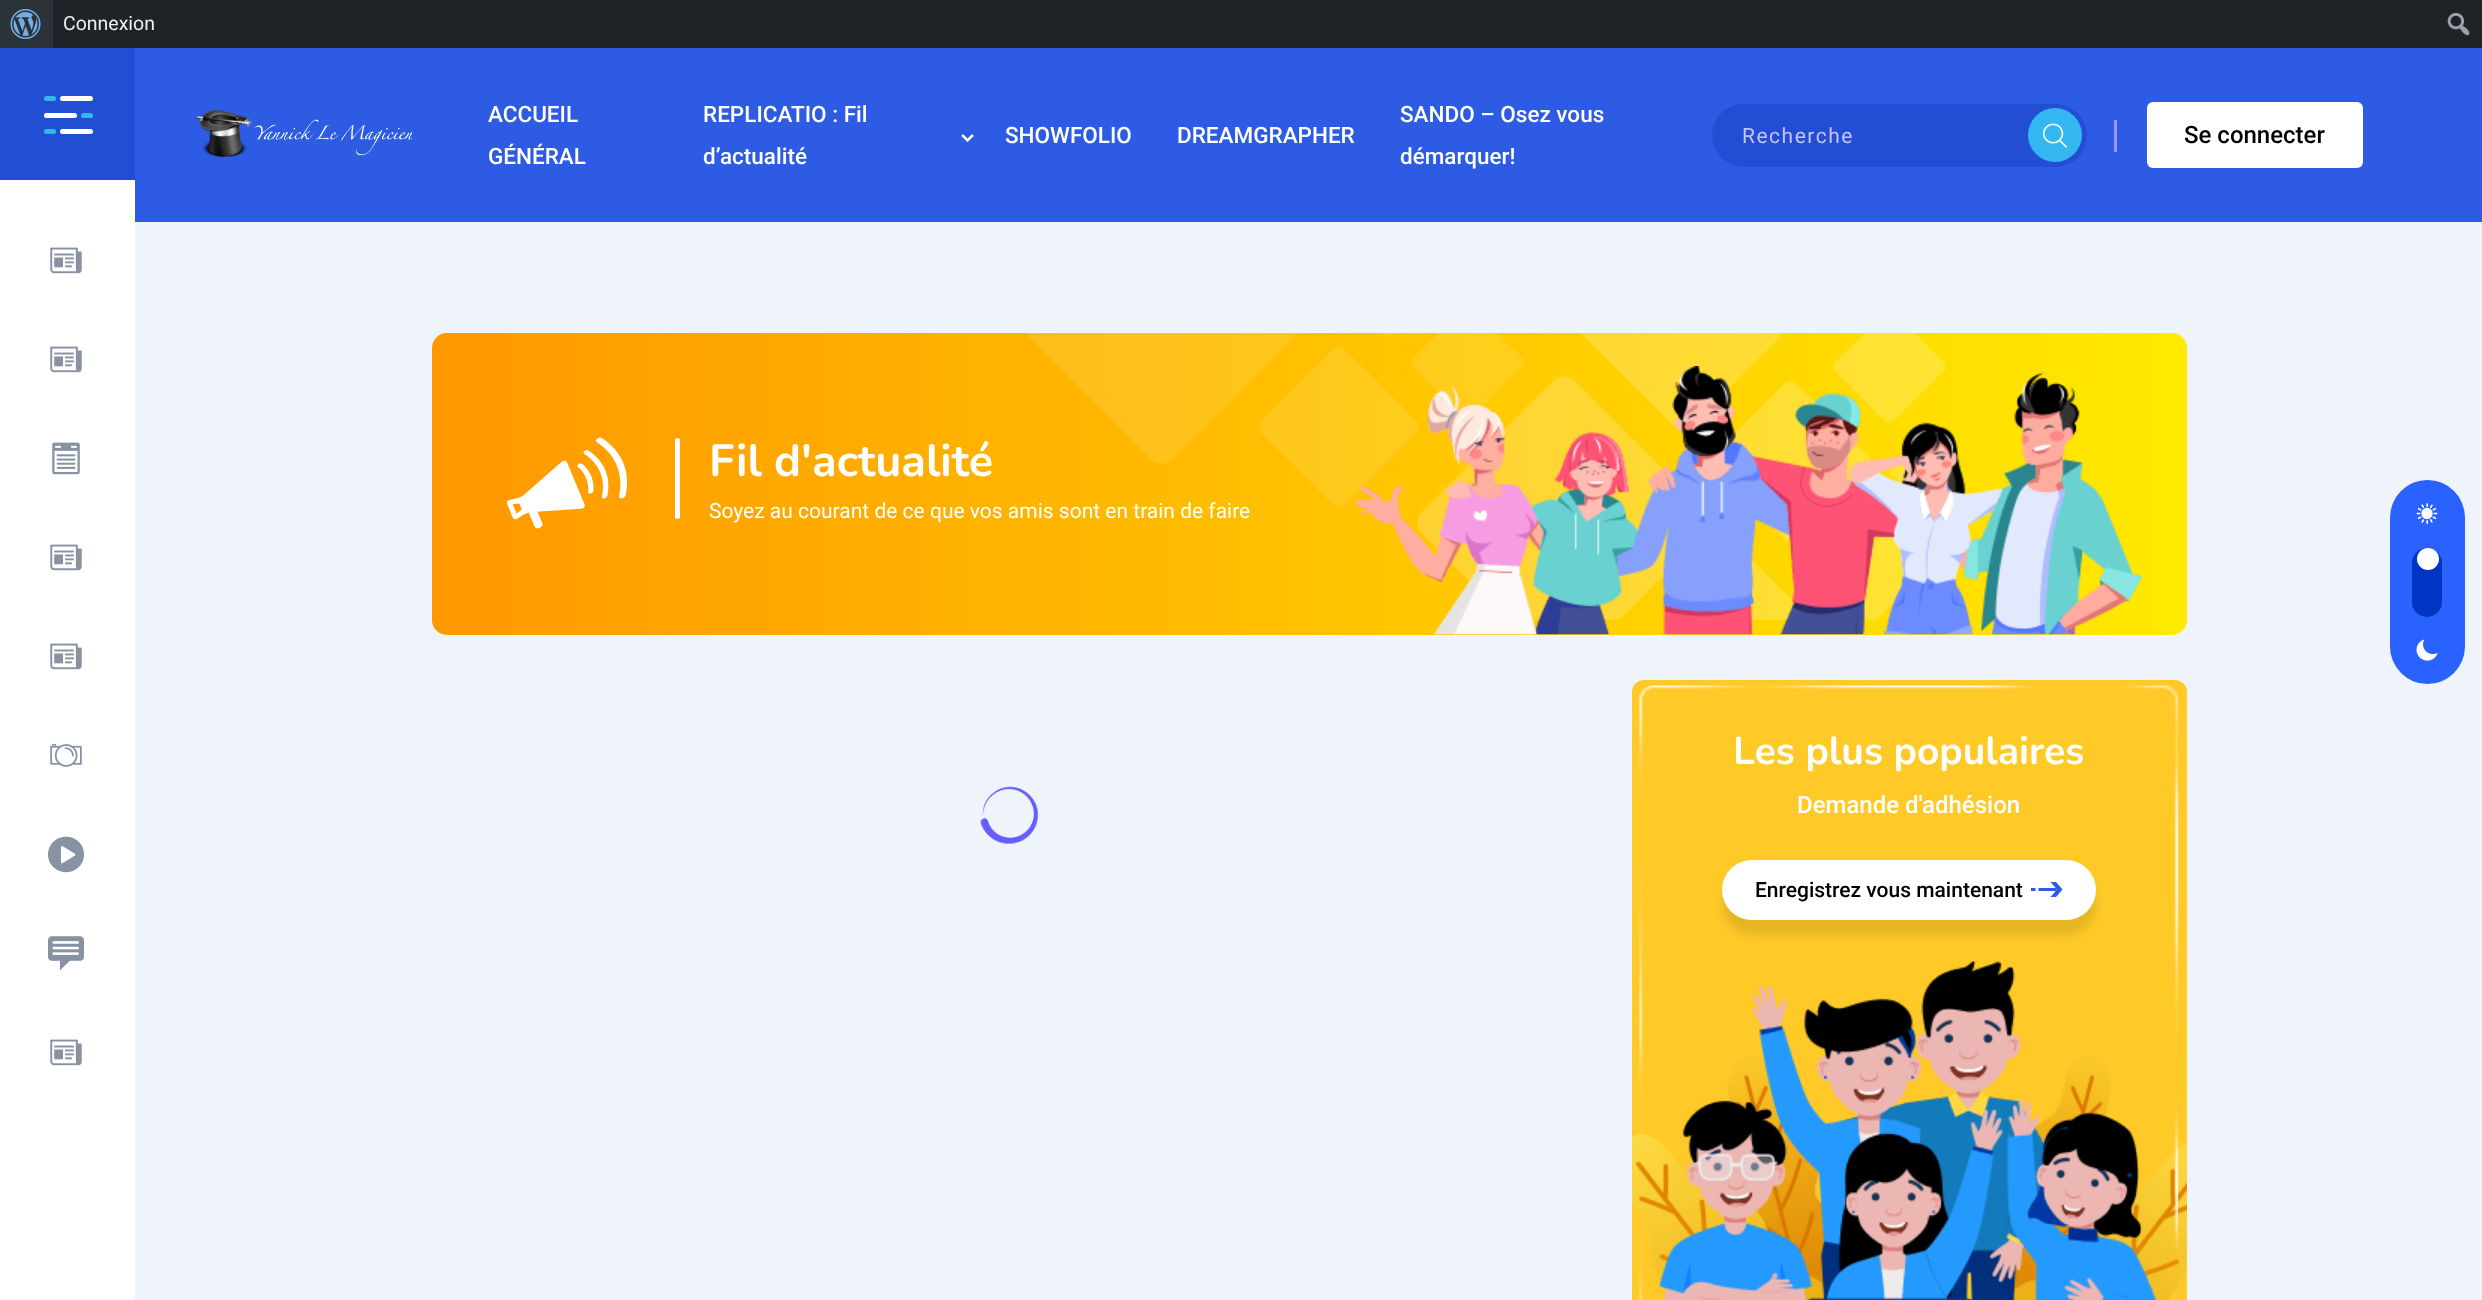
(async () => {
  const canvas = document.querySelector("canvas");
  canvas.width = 2482;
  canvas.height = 1300;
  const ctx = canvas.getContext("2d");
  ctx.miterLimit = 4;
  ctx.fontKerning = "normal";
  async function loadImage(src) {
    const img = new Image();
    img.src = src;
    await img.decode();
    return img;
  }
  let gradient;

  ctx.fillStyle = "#eff4fb";
  ctx.fillRect(0, 0, 2482, 1300);
  ctx.fillStyle = "#1d2327";
  ctx.fillRect(53, 0, 2429, 48);
  ctx.fillStyle = "#2c3338";
  ctx.fillRect(0, 0, 53, 48);
  ctx.drawImage(await loadImage("img/1.png"), 10, 9, 31, 30);
  ctx.drawImage(await loadImage("img/2.png"), 2447, 12, 23, 24);
  ctx.fillStyle = "#2d5be3";
  ctx.fillRect(135, 48, 2347, 174);
  ctx.drawImage(await loadImage("img/3.png"), 196, 109, 217, 49);
  ctx.drawImage(await loadImage("img/4.png"), 961, 134, 13, 9);
  ctx.fillStyle = "#224ed3";
  ctx.beginPath();
  ctx.roundRect(1712, 104, 375, 63, 31.5);
  ctx.fill();
  ctx.fillStyle = "#34b7f1";
  ctx.beginPath();
  ctx.arc(2055, 135, 27, 0, Math.PI * 2);
  ctx.fill();
  ctx.drawImage(await loadImage("img/5.png"), 2043, 123, 24, 25);
  ctx.fillStyle = "#9996fc";
  ctx.fillRect(2114, 120, 3, 32);
  ctx.fillStyle = "#ffffff";
  ctx.beginPath();
  ctx.roundRect(2147, 102, 216, 66, 6);
  ctx.fill();
  ctx.fillStyle = "#224ed3";
  ctx.fillRect(0, 48, 135, 132);
  ctx.fillStyle = "#ffffff";
  ctx.beginPath();
  ctx.roundRect(60, 96, 33, 5, 2.5);
  ctx.fill();
  ctx.fillStyle = "#34b7f1";
  ctx.beginPath();
  ctx.roundRect(44, 96, 12, 5, 2.5);
  ctx.fill();
  ctx.fillStyle = "#ffffff";
  ctx.beginPath();
  ctx.roundRect(44, 113, 33, 5, 2.5);
  ctx.fill();
  ctx.fillStyle = "#34b7f1";
  ctx.beginPath();
  ctx.roundRect(81, 113, 12, 5, 2.5);
  ctx.fill();
  ctx.fillStyle = "#ffffff";
  ctx.beginPath();
  ctx.roundRect(60, 129, 33, 5, 2.5);
  ctx.fill();
  ctx.fillStyle = "#34b7f1";
  ctx.beginPath();
  ctx.roundRect(44, 129, 12, 5, 2.5);
  ctx.fill();
  ctx.fillStyle = "#ffffff";
  ctx.fillRect(0, 180, 135, 1120);
  ctx.drawImage(await loadImage("img/6.png"), 50, 247, 32, 27);
  ctx.drawImage(await loadImage("img/6.png"), 50, 346, 32, 27);
  ctx.drawImage(await loadImage("img/7.png"), 52, 442, 28, 33);
  ctx.drawImage(await loadImage("img/6.png"), 50, 544, 32, 27);
  ctx.drawImage(await loadImage("img/6.png"), 50, 643, 32, 27);
  ctx.drawImage(await loadImage("img/8.png"), 50, 743, 32, 24);
  ctx.drawImage(await loadImage("img/9.png"), 48, 836, 36, 37);
  ctx.drawImage(await loadImage("img/10.png"), 48, 936, 36, 35);
  ctx.drawImage(await loadImage("img/6.png"), 50, 1039, 32, 27);
  gradient = ctx.createLinearGradient(2187, 484, 432, 484);
  gradient.addColorStop(0, "#ffea00");
  gradient.addColorStop(1, "#ff9800");
  ctx.fillStyle = gradient;
  ctx.beginPath();
  ctx.roundRect(432, 333, 1755, 302, 15);
  ctx.fill();
  ctx.drawImage(await loadImage("img/11.png"), 507, 437, 120, 92);
  ctx.fillStyle = "#ffffff";
  ctx.beginPath();
  ctx.roundRect(675, 438, 5, 81, 2.5);
  ctx.fill();
  ctx.drawImage(await loadImage("img/12.png"), 1025, 333, 937, 287);
  ctx.drawImage(await loadImage("img/13.png"), 1354, 366, 788, 269);
  ctx.drawImage(await loadImage("img/14.png"), 980, 786, 59, 58);
  ctx.fillStyle = "#ffca28";
  ctx.beginPath();
  ctx.roundRect(1632, 680, 555, 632, 12);
  ctx.fill();
  ctx.fillStyle = "rgba(0, 0, 0, 0.1)";
  ctx.filter = "blur(4.5px)";
  ctx.beginPath();
  ctx.roundRect(1722, 875, 374, 60, 30);
  ctx.fill();
  ctx.filter = "none";
  ctx.fillStyle = "#ffffff";
  ctx.beginPath();
  ctx.roundRect(1722, 860, 374, 60, 30);
  ctx.fill();
  ctx.drawImage(await loadImage("img/16.png"), 2031, 882, 32, 15);
  ctx.drawImage(await loadImage("img/17.png"), 1632, 961, 555, 339);
  ctx.fillStyle = "#2962ff";
  ctx.beginPath();
  ctx.roundRect(2390, 480, 75, 204, 37.5);
  ctx.fill();
  ctx.drawImage(await loadImage("img/18.png"), 2416, 503, 22, 21);
  ctx.fillStyle = "#0034c2";
  ctx.beginPath();
  ctx.roundRect(2412, 548, 30, 69, 15);
  ctx.fill();
  ctx.fillStyle = "#ffffff";
  ctx.beginPath();
  ctx.arc(2428, 559, 11, 0, Math.PI * 2);
  ctx.fill();
  ctx.drawImage(await loadImage("img/19.png"), 2416, 639, 22, 22);
  ctx.font = "19.5px Roboto";
  ctx.fillStyle = "#f0f0f1";
  ctx.fillText("Connexion", 63, 30);
  ctx.font = "500 22.5px Roboto";
  ctx.fillStyle = "#ffffff";
  for (const [text, x, y] of [
    ["ACCUEIL", 488, 122],
    ["GÉNÉRAL", 488, 164],
    ["REPLICATIO : Fil", 703, 122],
    ["d’actualité", 703, 164],
    ["SHOWFOLIO", 1005, 143],
    ["DREAMGRAPHER", 1177, 143],
    ["SANDO – Osez vous", 1400, 122],
    ["démarquer!", 1400, 164],
  ]) {
    ctx.fillText(text, x, y);
  }
  ctx.letterSpacing = "1.5px";
  ctx.font = "21px Roboto";
  ctx.fillStyle = "#c5c3ff";
  ctx.fillText("Recherche", 1742, 143);
  ctx.letterSpacing = "0px";
  ctx.font = "500 24px Roboto";
  ctx.fillStyle = "#000000";
  ctx.fillText("Se connecter", 2184, 143);
  ctx.font = "bold 45px Nunito";
  ctx.fillStyle = "#ffffff";
  ctx.fillText("Fil d'actualité", 709, 476);
  ctx.font = "21px Roboto";
  ctx.fillText("Soyez au courant de ce que vos amis sont en train de faire", 709, 518);
  ctx.font = "bold 39px Nunito";
  ctx.fillText("Les plus populaires", 1733, 764);
  ctx.font = "500 24px Roboto";
  ctx.fillText("Demande d'adhésion", 1797, 813);
  ctx.font = "500 21px Roboto";
  ctx.fillStyle = "#000000";
  ctx.fillText("Enregistrez vous maintenant", 1755, 897);
  ctx.drawImage(await loadImage("img/15.png"), 1639, 685, 540, 615);
})();
